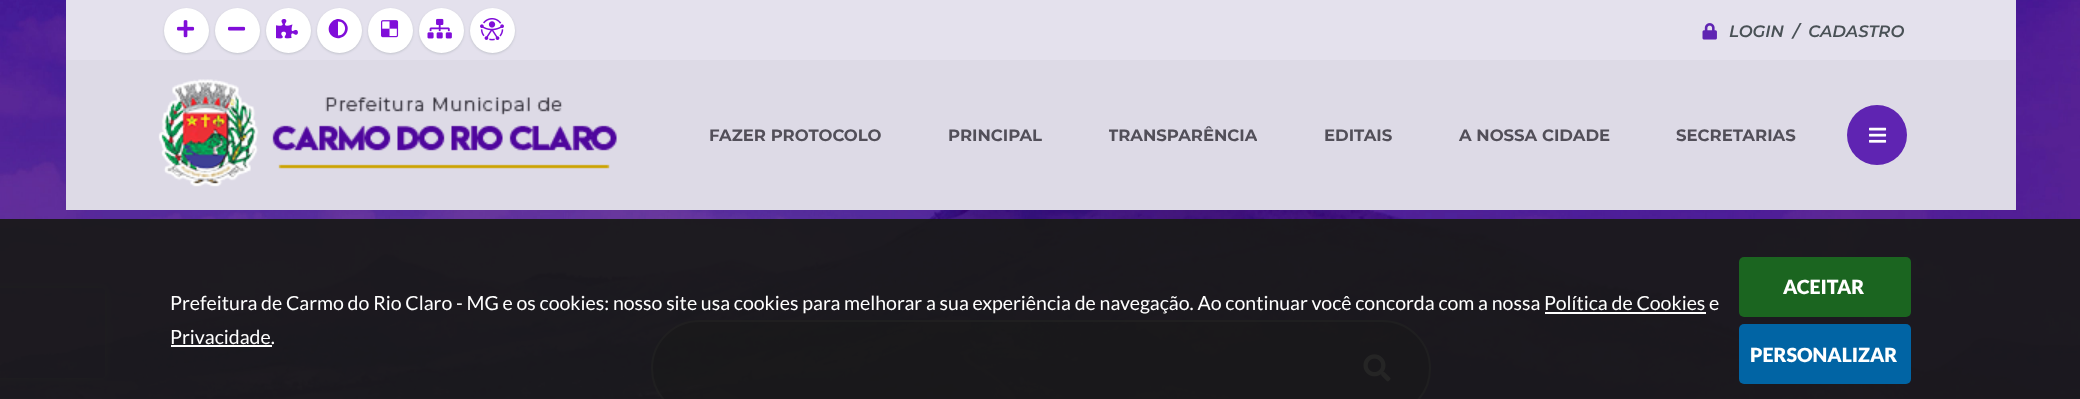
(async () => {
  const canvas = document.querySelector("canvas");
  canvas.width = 2080;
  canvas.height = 399;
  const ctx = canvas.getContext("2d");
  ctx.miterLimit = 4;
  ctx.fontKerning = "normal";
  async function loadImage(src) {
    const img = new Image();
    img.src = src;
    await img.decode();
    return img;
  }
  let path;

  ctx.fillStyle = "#ffffff";
  ctx.fillRect(0, 0, 2080, 399);
  ctx.drawImage(await loadImage("img/2.png"), 0, 0, 2080, 399);
  ctx.save();
  path = new Path2D("M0 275H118V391H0ZM-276 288H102C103.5 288 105 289.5 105 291V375C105 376.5 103.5 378 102 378H-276C-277.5 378-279 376.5-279 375V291C-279 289.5-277.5 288-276 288Z");
  ctx.clip(path, "evenodd");
  ctx.fillStyle = "#808080";
  ctx.filter = "blur(4px)";
  ctx.beginPath();
  ctx.roundRect(-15, 288, 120, 90, 3);
  ctx.fill();
  ctx.filter = "none";
  ctx.restore();
  ctx.fillStyle = "#e4e1ed";
  ctx.fillRect(66, 0, 1950, 60);
  ctx.drawImage(await loadImage("img/1.png"), 1702, 23, 15, 17);
  ctx.fillStyle = "#dddae6";
  ctx.fillRect(66, 60, 1950, 150);
  ctx.fillStyle = "#c2c4cc";
  ctx.filter = "blur(1px)";
  ctx.beginPath();
  ctx.roundRect(164, 9, 45, 45, 22.5);
  ctx.fill();
  ctx.filter = "none";
  ctx.fillStyle = "#ffffff";
  ctx.beginPath();
  ctx.arc(186.5, 30.5, 22.5, 0, Math.PI * 2);
  ctx.fill();
  ctx.drawImage(await loadImage("img/3.png"), 177, 20, 18, 18);
  ctx.fillStyle = "#c2c4cc";
  ctx.filter = "blur(1px)";
  ctx.beginPath();
  ctx.roundRect(215, 9, 45, 45, 22.5);
  ctx.fill();
  ctx.filter = "none";
  ctx.fillStyle = "#ffffff";
  ctx.beginPath();
  ctx.arc(237.5, 30.5, 22.5, 0, Math.PI * 2);
  ctx.fill();
  ctx.drawImage(await loadImage("img/4.png"), 228, 26, 18, 5);
  ctx.fillStyle = "#c2c4cc";
  ctx.filter = "blur(1px)";
  ctx.beginPath();
  ctx.roundRect(266, 9, 45, 45, 22.5);
  ctx.fill();
  ctx.filter = "none";
  ctx.fillStyle = "#ffffff";
  ctx.beginPath();
  ctx.arc(288.5, 30.5, 22.5, 0, Math.PI * 2);
  ctx.fill();
  ctx.drawImage(await loadImage("img/5.png"), 276, 19, 22, 20);
  ctx.fillStyle = "#c2c4cc";
  ctx.filter = "blur(1px)";
  ctx.beginPath();
  ctx.roundRect(317, 9, 45, 45, 22.5);
  ctx.fill();
  ctx.filter = "none";
  ctx.fillStyle = "#ffffff";
  ctx.beginPath();
  ctx.arc(339.5, 30.5, 22.5, 0, Math.PI * 2);
  ctx.fill();
  ctx.fillStyle = "#800dd9";
  path = new Path2D("M331.5 35.5C323 26.5 336 13 345 22C353.5 31 340.5 44 331.5 35.5ZM338 35.5C347.5 35.5 347.5 21.5 338 21.5Z");
  ctx.fill(path);
  ctx.fillStyle = "#c2c4cc";
  ctx.filter = "blur(1px)";
  ctx.beginPath();
  ctx.roundRect(368, 9, 45, 45, 22.5);
  ctx.fill();
  ctx.filter = "none";
  ctx.fillStyle = "#ffffff";
  ctx.beginPath();
  ctx.arc(390.5, 30.5, 22.5, 0, Math.PI * 2);
  ctx.fill();
  ctx.drawImage(await loadImage("img/6.png"), 381, 20, 18, 18);
  ctx.fillStyle = "#c2c4cc";
  ctx.filter = "blur(1px)";
  ctx.beginPath();
  ctx.roundRect(419, 9, 45, 45, 22.5);
  ctx.fill();
  ctx.filter = "none";
  ctx.fillStyle = "#ffffff";
  ctx.beginPath();
  ctx.arc(441.5, 30.5, 22.5, 0, Math.PI * 2);
  ctx.fill();
  ctx.drawImage(await loadImage("img/7.png"), 427, 18, 25, 21);
  ctx.fillStyle = "#c2c4cc";
  ctx.filter = "blur(1px)";
  ctx.beginPath();
  ctx.roundRect(470, 9, 45, 45, 22.5);
  ctx.fill();
  ctx.filter = "none";
  ctx.fillStyle = "#ffffff";
  ctx.beginPath();
  ctx.arc(492.5, 30.5, 22.5, 0, Math.PI * 2);
  ctx.fill();
  ctx.drawImage(await loadImage("img/8.png"), 480, 18, 24, 23);
  ctx.drawImage(await loadImage("img/9.png"), 158, 79, 459, 108);
  ctx.fillStyle = "#5f24b2";
  ctx.beginPath();
  ctx.arc(1877, 135, 30, 0, Math.PI * 2);
  ctx.fill();
  ctx.drawImage(await loadImage("img/10.png"), 1869, 127, 18, 16);
  ctx.fillStyle = "rgba(15, 14, 15, 0.55)";
  ctx.beginPath();
  ctx.roundRect(651, 320, 780, 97, 48.5);
  ctx.fill();
  ctx.beginPath();
  ctx.roundRect(652, 321, 778, 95, 47.5);
  ctx.strokeStyle = "rgba(255, 255, 255, 0.5)";
  ctx.lineWidth = 2;
  ctx.stroke();
  ctx.drawImage(await loadImage("img/11.png"), 1363, 354, 28, 28);
  for (const [x, y, w, h, color] of [
    [0, 219, 2080, 180, "rgba(25, 25, 25, 0.95)"],
    [1545, 312, 161, 2, "#ffffff"],
    [171, 345, 101, 2, "#ffffff"],
  ]) {
    ctx.fillStyle = color;
    ctx.fillRect(x, y, w, h);
  }
  ctx.fillStyle = "#1b6520";
  ctx.beginPath();
  ctx.roundRect(1739, 257, 172, 60, 5);
  ctx.fill();
  ctx.fillStyle = "#0164a4";
  ctx.beginPath();
  ctx.roundRect(1739, 324, 172, 60, 5);
  ctx.fill();
  ctx.font = "italic 600 16.5px Montserrat";
  ctx.fillStyle = "#495156";
  ctx.fillText("LOGIN  /  CADASTRO", 1729, 37);
  ctx.font = "bold 16.5px Montserrat";
  ctx.fillStyle = "#524f59";
  ctx.fillText("FAZER PROTOCOLO", 709, 141);
  ctx.fillText("PRINCIPAL", 948, 141);
  ctx.save();
  ctx.beginPath();
  ctx.rect(1109, 125, 148, 21);
  ctx.clip();
  ctx.fillText("TRANSPARÊNCIA", 1108, 141);
  ctx.restore();
  for (const [text, x, y] of [
    ["EDITAIS", 1324, 141],
    ["A NOSSA CIDADE", 1459, 141],
    ["SECRETARIAS", 1676, 141],
  ]) {
    ctx.fillText(text, x, y);
  }
  ctx.font = "19.5px Lato";
  ctx.fillStyle = "#ffffff";
  ctx.fillText("Prefeitura de Carmo do Rio Claro - MG e os cookies: nosso site usa cookies para melhorar a sua experiência de navegação. Ao continuar você concorda com a nossa Política de Cookies e", 170, 310);
  ctx.fillText("Privacidade.", 170, 344);
  ctx.font = "900 19.5px Lato";
  ctx.fillText("ACEITAR", 1783, 294);
  ctx.fillText("PERSONALIZAR", 1750, 362);
})();
